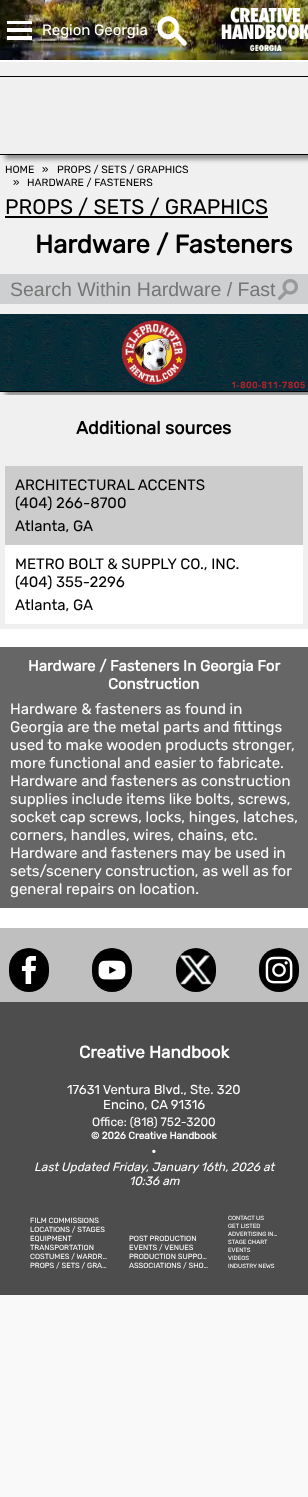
(async () => {
  const canvas = document.querySelector("canvas");
  canvas.width = 308;
  canvas.height = 1497;
  const ctx = canvas.getContext("2d");
  ctx.miterLimit = 4;
  ctx.fontKerning = "normal";
  async function loadImage(src) {
    const img = new Image();
    img.src = src;
    await img.decode();
    return img;
  }

  ctx.fillStyle = "#f9f9f9";
  ctx.fillRect(0, 0, 308, 1497);
  ctx.fillStyle = "#ffffff";
  ctx.fillRect(0, 60, 308, 868);
  ctx.drawImage(await loadImage("img/1.png"), 0, 0, 308, 60);
  for (const [x, y, w, h, color] of [
    [7, 21, 25, 3, "#ffffff"],
    [7, 28, 25, 4, "#ffffff"],
    [7, 36, 25, 4, "#ffffff"],
  ]) {
    ctx.fillStyle = color;
    ctx.fillRect(x, y, w, h);
  }
  ctx.drawImage(await loadImage("img/2.png"), 157, 16, 30, 30);
  ctx.drawImage(await loadImage("img/3.png"), 221, 7, 87, 44);
  ctx.fillStyle = "#f0f0f0";
  ctx.fillRect(0, 62, 308, 567);
  ctx.save();
  ctx.beginPath();
  ctx.rect(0, 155, 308, 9);
  ctx.clip();
  ctx.fillStyle = "#888888";
  ctx.filter = "blur(2.5px)";
  ctx.beginPath();
  ctx.rect(5, 82, 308, 77);
  ctx.fill();
  ctx.filter = "none";
  ctx.restore();
  ctx.strokeStyle = "#000000";
  ctx.strokeRect(-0.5, 76.5, 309, 78);
  ctx.fillStyle = "#000000";
  ctx.fillRect(5, 216, 263, 2);
  ctx.fillStyle = "#cecfd0";
  ctx.fillRect(0, 274, 308, 30);
  ctx.drawImage(await loadImage("img/4.png"), 278, 279, 20, 21);
  ctx.save();
  ctx.beginPath();
  ctx.rect(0, 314, 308, 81);
  ctx.clip();
  ctx.fillStyle = "#888888";
  ctx.filter = "blur(2.5px)";
  ctx.beginPath();
  ctx.rect(5, 319, 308, 77);
  ctx.fill();
  ctx.filter = "none";
  ctx.restore();
  ctx.drawImage(await loadImage("img/5.png"), 0, 314, 308, 77);
  ctx.save();
  ctx.beginPath();
  ctx.rect(0, 314, 308, 81);
  ctx.clip();
  ctx.strokeRect(-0.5, 313.5, 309, 78);
  ctx.restore();
  for (const [x, y, w, h, color] of [
    [5, 466, 298, 79, "#cccccc"],
    [5, 545, 298, 79, "#ffffff"],
    [0, 647, 308, 261, "#666666"],
    [0, 928, 308, 74, "#bfbfbf"],
  ]) {
    ctx.fillStyle = color;
    ctx.fillRect(x, y, w, h);
  }
  ctx.fillStyle = "#000000";
  ctx.beginPath();
  ctx.roundRect(9, 948, 40, 44, 20);
  ctx.fill();
  ctx.drawImage(await loadImage("img/6.png"), 21, 956, 15, 28);
  ctx.beginPath();
  ctx.roundRect(92, 948, 40, 44, 20);
  ctx.fill();
  ctx.drawImage(await loadImage("img/7.png"), 98, 960, 28, 20);
  ctx.beginPath();
  ctx.roundRect(176, 948, 40, 44, 20);
  ctx.fill();
  ctx.drawImage(await loadImage("img/8.png"), 180, 955, 32, 30);
  ctx.beginPath();
  ctx.roundRect(259, 948, 40, 44, 20);
  ctx.fill();
  ctx.drawImage(await loadImage("img/9.png"), 265, 956, 28, 28);
  ctx.fillStyle = "#4d4d4d";
  ctx.fillRect(0, 1002, 308, 293);
  ctx.font = "300 15px Rubik";
  ctx.fillStyle = "#ffffff";
  ctx.fillText("Region Georgia", 42, 35);
  ctx.font = "300 10.5px Rubik";
  ctx.fillStyle = "#000000";
  for (const [text, x, y] of [
    ["HOME", 5, 173],
    ["»", 42, 173],
    ["PROPS / SETS / GRAPHICS", 57, 173],
    ["»", 13, 186],
    ["HARDWARE / FASTENERS", 27, 186],
  ]) {
    ctx.fillText(text, x, y);
  }
  ctx.font = "300 21px Rubik";
  ctx.fillText("PROPS / SETS / GRAPHICS", 5, 214);
  ctx.font = "bold 25.5px Rubik";
  ctx.fillText("Hardware / Fasteners", 35, 253);
  ctx.font = "19.5px Liberation Sans";
  ctx.fillStyle = "#757575";
  ctx.fillText("Search Within Hardware / Fast", 10, 296);
  ctx.font = "bold 18px Rubik";
  ctx.fillStyle = "#000000";
  ctx.fillText("Additional sources", 76, 434);
  ctx.font = "300 15px Rubik";
  for (const [text, x, y] of [
    ["ARCHITECTURAL ACCENTS", 15, 490],
    ["(404) 266-8700", 15, 508],
    ["Atlanta, GA", 15, 531],
    ["METRO BOLT & SUPPLY CO., INC.", 15, 569],
    ["(404) 355-2296", 15, 587],
    ["Atlanta, GA", 15, 610],
  ]) {
    ctx.fillText(text, x, y);
  }
  ctx.font = "bold 15px Rubik";
  ctx.fillStyle = "#ffffff";
  ctx.fillText("Hardware / Fasteners In Georgia For", 28, 671);
  ctx.fillText("Construction", 108, 689);
  ctx.font = "300 15px Rubik";
  for (const [text, x, y] of [
    ["Hardware & fasteners as found in", 10, 714],
    ["Georgia are the metal parts and fittings", 10, 732],
    ["used to make wooden products stronger,", 10, 750],
    ["more functional and easier to fabricate.", 10, 768],
    ["Hardware and fasteners as construction", 10, 786],
    ["supplies include items like bolts, screws,", 10, 804],
    ["socket cap screws, locks, hinges, latches,", 10, 822],
    ["corners, handles, wires, chains, etc.", 10, 840],
    ["Hardware and fasteners may be used in", 10, 858],
    ["sets/scenery construction, as well as for", 10, 876],
    ["general repairs on location.", 10, 894],
  ]) {
    ctx.fillText(text, x, y);
  }
  ctx.font = "bold 17px Rubik";
  ctx.fillText("Creative Handbook", 79, 1058);
  ctx.font = "300 13px Rubik";
  ctx.fillText("17631 Ventura Blvd., Ste. 320", 67, 1094);
  ctx.fillText("Encino, CA 91316", 103, 1109);
  ctx.font = "300 12px Rubik";
  ctx.fillText("Office: (818) 752-3200", 92, 1126);
  ctx.font = "bold 10px Rubik";
  ctx.fillText("© 2026 Creative Handbook", 91, 1139);
  ctx.font = "300 15px Rubik";
  ctx.fillText("•", 151, 1156);
  ctx.font = "italic 300 12px Rubik";
  ctx.fillText("Last Updated Friday, January 16th, 2026 at", 34, 1171);
  ctx.fillText("10:36 am", 129, 1185);
  ctx.font = "300 7.5px Rubik";
  for (const [text, x, y] of [
    ["FILM COMMISSIONS", 30, 1223],
    ["LOCATIONS / STAGES", 30, 1232],
    ["EQUIPMENT", 30, 1241],
    ["TRANSPORTATION", 30, 1250],
    ["COSTUMES / WARDR…", 30, 1259],
    ["PROPS / SETS / GRA…", 30, 1268],
    ["POST PRODUCTION", 129, 1241],
    ["EVENTS / VENUES", 129, 1250],
    ["PRODUCTION SUPPO…", 129, 1259],
    ["ASSOCIATIONS / SHO…", 129, 1268],
  ]) {
    ctx.fillText(text, x, y);
  }
  ctx.font = "300 6px Rubik";
  for (const [text, x, y] of [
    ["CONTACT US", 228, 1220],
    ["GET LISTED", 228, 1228],
    ["ADVERTISING IN…", 228, 1236],
    ["STAGE CHART", 228, 1244],
    ["EVENTS", 228, 1252],
    ["VIDEOS", 228, 1260],
    ["INDUSTRY NEWS", 228, 1268],
  ]) {
    ctx.fillText(text, x, y);
  }
})();
